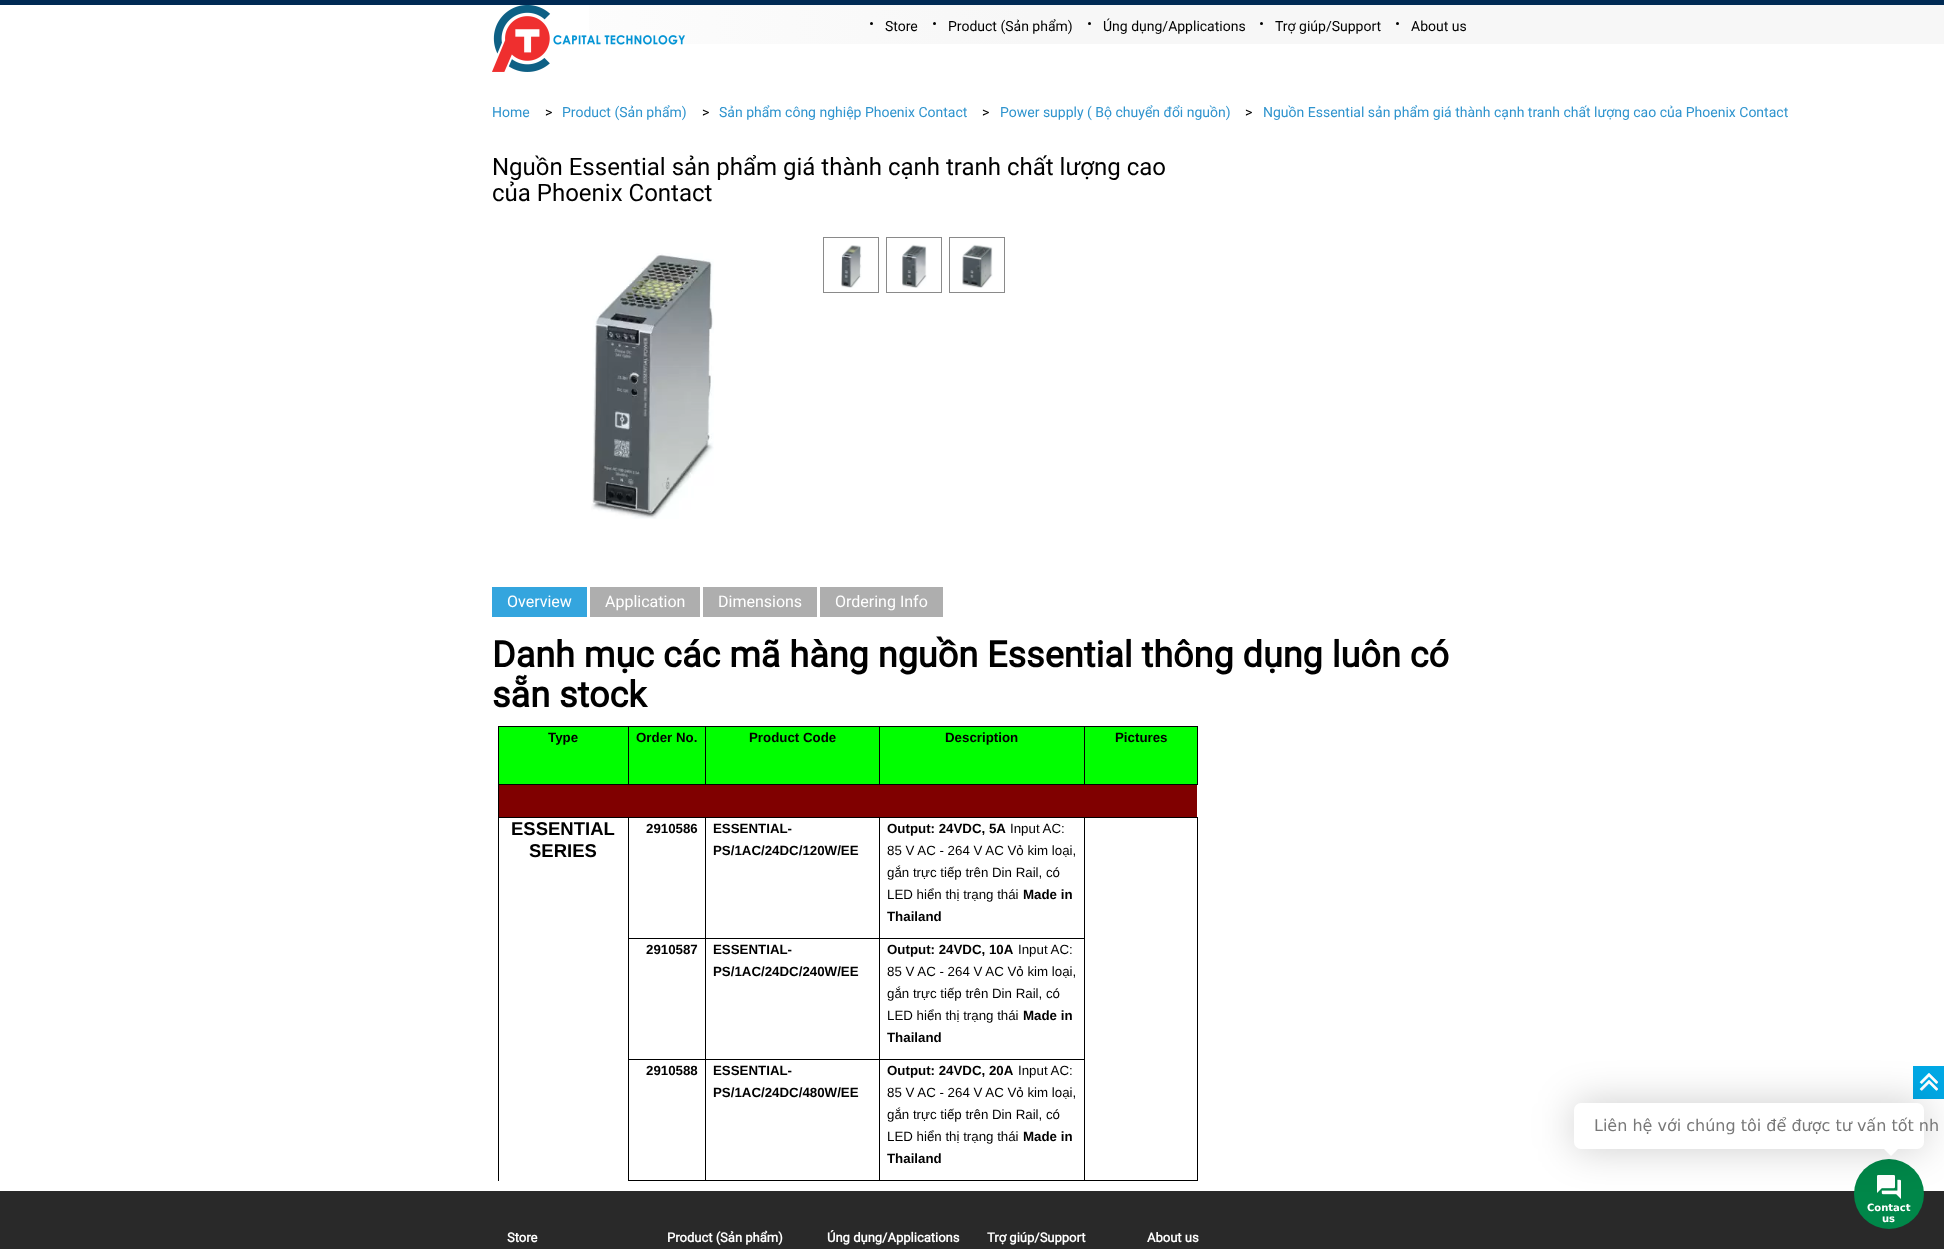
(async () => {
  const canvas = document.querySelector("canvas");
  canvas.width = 1944;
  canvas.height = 1249;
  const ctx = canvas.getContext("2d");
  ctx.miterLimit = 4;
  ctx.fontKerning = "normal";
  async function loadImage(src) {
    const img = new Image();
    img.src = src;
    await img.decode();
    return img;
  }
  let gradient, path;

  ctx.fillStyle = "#ffffff";
  ctx.fillRect(0, 0, 1944, 1249);
  gradient = ctx.createLinearGradient(0, 25, 1944, 24);
  gradient.addColorStop(0.2, "#ffffff");
  gradient.addColorStop(0.53, "#f7f7f7");
  ctx.fillStyle = gradient;
  ctx.fillRect(589, 5, 1355, 39);
  ctx.fillStyle = "#002a54";
  ctx.fillRect(0, 0, 1944, 5);
  ctx.drawImage(await loadImage("img/1.png"), 492, 5, 193, 67);
  ctx.fillStyle = "#000000";
  ctx.beginPath();
  ctx.arc(871.5, 23.5, 1.5, 0, Math.PI * 2);
  ctx.fill();
  ctx.beginPath();
  ctx.arc(934.5, 23.5, 1.5, 0, Math.PI * 2);
  ctx.fill();
  ctx.beginPath();
  ctx.arc(1089.5, 23.5, 1.5, 0, Math.PI * 2);
  ctx.fill();
  ctx.beginPath();
  ctx.arc(1261.5, 23.5, 1.5, 0, Math.PI * 2);
  ctx.fill();
  ctx.beginPath();
  ctx.arc(1397.5, 23.5, 1.5, 0, Math.PI * 2);
  ctx.fill();
  ctx.drawImage(await loadImage("img/2.png"), 591, 253, 123, 266);
  ctx.strokeStyle = "#8a8a8a";
  ctx.strokeRect(823.5, 237.5, 55, 55);
  ctx.drawImage(await loadImage("img/3.png"), 841, 245, 21, 43);
  ctx.strokeRect(886.5, 237.5, 55, 55);
  ctx.drawImage(await loadImage("img/4.png"), 902, 244, 25, 44);
  ctx.strokeRect(949.5, 237.5, 55, 55);
  ctx.drawImage(await loadImage("img/5.png"), 962, 244, 31, 44);
  for (const [x, y, w, h, color] of [
    [492, 587, 95, 30, "#34a5de"],
    [590, 587, 110, 30, "#aeaeae"],
    [703, 587, 114, 30, "#aeaeae"],
    [820, 587, 123, 30, "#aeaeae"],
    [499, 727, 129, 57, "#00ff00"],
    [498, 726, 700, 1, "#000000"],
    [1197, 726, 1, 59, "#000000"],
    [1084, 784, 114, 1, "#000000"],
    [1084, 726, 1, 59, "#000000"],
    [879, 784, 206, 1, "#000000"],
    [879, 726, 1, 59, "#000000"],
    [705, 784, 175, 1, "#000000"],
    [705, 726, 1, 59, "#000000"],
    [628, 784, 78, 1, "#000000"],
    [628, 726, 1, 59, "#000000"],
    [498, 817, 700, 1, "#000000"],
    [498, 784, 1, 397, "#000000"],
    [498, 784, 131, 1, "#000000"],
    [498, 726, 1, 59, "#000000"],
    [629, 727, 76, 57, "#00ff00"],
    [706, 727, 173, 57, "#00ff00"],
    [880, 727, 204, 57, "#00ff00"],
    [1085, 727, 112, 57, "#00ff00"],
    [499, 785, 698, 32, "#800000"],
    [1197, 817, 1, 364, "#000000"],
    [1084, 938, 1, 243, "#000000"],
    [879, 1180, 206, 1, "#000000"],
    [1084, 1180, 114, 1, "#000000"],
    [1084, 817, 1, 122, "#000000"],
    [879, 1059, 1, 122, "#000000"],
    [879, 1059, 206, 1, "#000000"],
    [879, 938, 1, 122, "#000000"],
    [879, 938, 206, 1, "#000000"],
    [879, 817, 1, 122, "#000000"],
    [705, 1180, 175, 1, "#000000"],
    [705, 1059, 1, 122, "#000000"],
    [705, 1059, 175, 1, "#000000"],
    [705, 938, 1, 122, "#000000"],
    [705, 938, 175, 1, "#000000"],
    [705, 817, 1, 122, "#000000"],
    [628, 938, 78, 1, "#000000"],
    [628, 1059, 78, 1, "#000000"],
    [628, 1180, 78, 1, "#000000"],
    [628, 817, 1, 364, "#000000"],
  ]) {
    ctx.fillStyle = color;
    ctx.fillRect(x, y, w, h);
  }
  ctx.drawImage(await loadImage("img/6.png"), 1913, 1066, 31, 33);
  ctx.fillStyle = "#292929";
  ctx.fillRect(0, 1191, 1944, 58);
  ctx.fillStyle = "#008749";
  ctx.beginPath();
  ctx.arc(1889, 1194, 35, 0, Math.PI * 2);
  ctx.fill();
  ctx.drawImage(await loadImage("img/7.png"), 1877, 1175, 24, 24);
  ctx.fillStyle = "rgba(0, 0, 0, 0.2)";
  ctx.filter = "blur(20px)";
  ctx.beginPath();
  ctx.roundRect(1574, 1103, 350, 46, 7);
  ctx.fill();
  ctx.filter = "none";
  ctx.fillStyle = "#ffffff";
  ctx.beginPath();
  ctx.roundRect(1574, 1103, 350, 46, 7);
  ctx.fill();
  path = new Path2D("M1883 1148H1899L1891 1156Z");
  ctx.fill(path);
  ctx.font = "14px Roboto";
  ctx.fillStyle = "#000000";
  for (const [text, x, y] of [
    ["Store", 885, 31],
    ["Product (Sản phẩm)", 948, 31],
    ["Úng dụng/Applications", 1103, 31],
    ["Trợ giúp/Support", 1275, 31],
    ["About us", 1411, 31],
  ]) {
    ctx.fillText(text, x, y);
  }
  ctx.fillStyle = "#2f94ce";
  ctx.fillText("Home", 492, 117);
  ctx.fillStyle = "#000000";
  ctx.fillText(">", 545, 117);
  ctx.fillStyle = "#2f94ce";
  ctx.fillText("Product (Sản phẩm)", 562, 117);
  ctx.fillStyle = "#000000";
  ctx.fillText(">", 702, 117);
  ctx.fillStyle = "#2f94ce";
  ctx.fillText("Sản phẩm công nghiệp Phoenix Contact", 719, 117);
  ctx.fillStyle = "#000000";
  ctx.fillText(">", 982, 117);
  ctx.fillStyle = "#2f94ce";
  ctx.fillText("Power supply ( Bộ chuyển đổi nguồn)", 1000, 117);
  ctx.fillStyle = "#000000";
  ctx.fillText(">", 1245, 117);
  ctx.fillStyle = "#2f94ce";
  ctx.fillText("Nguồn Essential sản phẩm giá thành cạnh tranh chất lượng cao của Phoenix Contact", 1263, 117);
  ctx.font = "24px Roboto";
  ctx.fillStyle = "#000000";
  ctx.fillText("Nguồn Essential sản phẩm giá thành cạnh tranh chất lượng cao", 492, 175);
  ctx.fillText("của Phoenix Contact", 492, 201);
  ctx.font = "16px Roboto";
  ctx.fillStyle = "#ffffff";
  for (const [text, x, y] of [
    ["Overview", 507, 607],
    ["Application", 605, 607],
    ["Dimensions", 718, 607],
    ["Ordering Info", 835, 607],
  ]) {
    ctx.fillText(text, x, y);
  }
  ctx.font = "bold 36px Roboto";
  ctx.fillStyle = "#000000";
  ctx.fillText("Danh mục các mã hàng nguồn Essential thông dụng luôn có", 492, 667);
  ctx.fillText("sẵn stock", 492, 707);
  ctx.font = "bold 13.3px Liberation Sans";
  for (const [text, x, y] of [
    ["Type", 548, 742],
    ["Order No.", 636, 742],
    ["Product Code", 749, 742],
    ["Description", 945, 742],
    ["Pictures", 1115, 742],
  ]) {
    ctx.fillText(text, x, y);
  }
  ctx.font = "bold 18.5px Liberation Sans";
  ctx.fillText("ESSENTIAL", 511, 835);
  ctx.fillText("SERIES", 529, 857);
  ctx.font = "bold 13.3px Liberation Sans";
  for (const [text, x, y] of [
    ["2910586", 646, 833],
    ["ESSENTIAL-", 713, 833],
    ["PS/1AC/24DC/120W/EE", 713, 855],
    ["Output: 24VDC, 5A", 887, 833],
  ]) {
    ctx.fillText(text, x, y);
  }
  ctx.font = "13.3px Liberation Sans";
  for (const [text, x, y] of [
    ["Input AC:", 1010, 833],
    ["85 V AC - 264 V AC Vỏ kim loại,", 887, 855],
    ["gắn trực tiếp trên Din Rail, có", 887, 877],
    ["LED hiển thị trạng thái", 887, 899],
  ]) {
    ctx.fillText(text, x, y);
  }
  ctx.font = "bold 13.3px Liberation Sans";
  for (const [text, x, y] of [
    ["Made in", 1023, 899],
    ["Thailand", 887, 921],
    ["2910587", 646, 954],
    ["ESSENTIAL-", 713, 954],
    ["PS/1AC/24DC/240W/EE", 713, 976],
    ["Output: 24VDC, 10A", 887, 954],
  ]) {
    ctx.fillText(text, x, y);
  }
  ctx.font = "13.3px Liberation Sans";
  for (const [text, x, y] of [
    ["Input AC:", 1018, 954],
    ["85 V AC - 264 V AC Vỏ kim loại,", 887, 976],
    ["gắn trực tiếp trên Din Rail, có", 887, 998],
    ["LED hiển thị trạng thái", 887, 1020],
  ]) {
    ctx.fillText(text, x, y);
  }
  ctx.font = "bold 13.3px Liberation Sans";
  for (const [text, x, y] of [
    ["Made in", 1023, 1020],
    ["Thailand", 887, 1042],
    ["2910588", 646, 1075],
    ["ESSENTIAL-", 713, 1075],
    ["PS/1AC/24DC/480W/EE", 713, 1097],
    ["Output: 24VDC, 20A", 887, 1075],
  ]) {
    ctx.fillText(text, x, y);
  }
  ctx.font = "13.3px Liberation Sans";
  for (const [text, x, y] of [
    ["Input AC:", 1018, 1075],
    ["85 V AC - 264 V AC Vỏ kim loại,", 887, 1097],
    ["gắn trực tiếp trên Din Rail, có", 887, 1119],
    ["LED hiển thị trạng thái", 887, 1141],
  ]) {
    ctx.fillText(text, x, y);
  }
  ctx.font = "bold 13.3px Liberation Sans";
  ctx.fillText("Made in", 1023, 1141);
  ctx.fillText("Thailand", 887, 1163);
  ctx.font = "16px DejaVu Sans";
  ctx.fillStyle = "#787878";
  ctx.fillText("Liên hệ với chúng tôi để được tư vấn tốt nh", 1594, 1131);
  ctx.font = "bold 10px DejaVu Sans";
  ctx.fillStyle = "#ffffff";
  ctx.fillText("Contact", 1867, 1211);
  ctx.fillText("us", 1882, 1222);
  ctx.font = "bold 13px Roboto";
  for (const [text, x, y] of [
    ["Store", 507, 1242],
    ["Product (Sản phẩm)", 667, 1242],
    ["Úng dụng/Applications", 827, 1242],
    ["Trợ giúp/Support", 987, 1242],
    ["About us", 1147, 1242],
  ]) {
    ctx.fillText(text, x, y);
  }
})();
